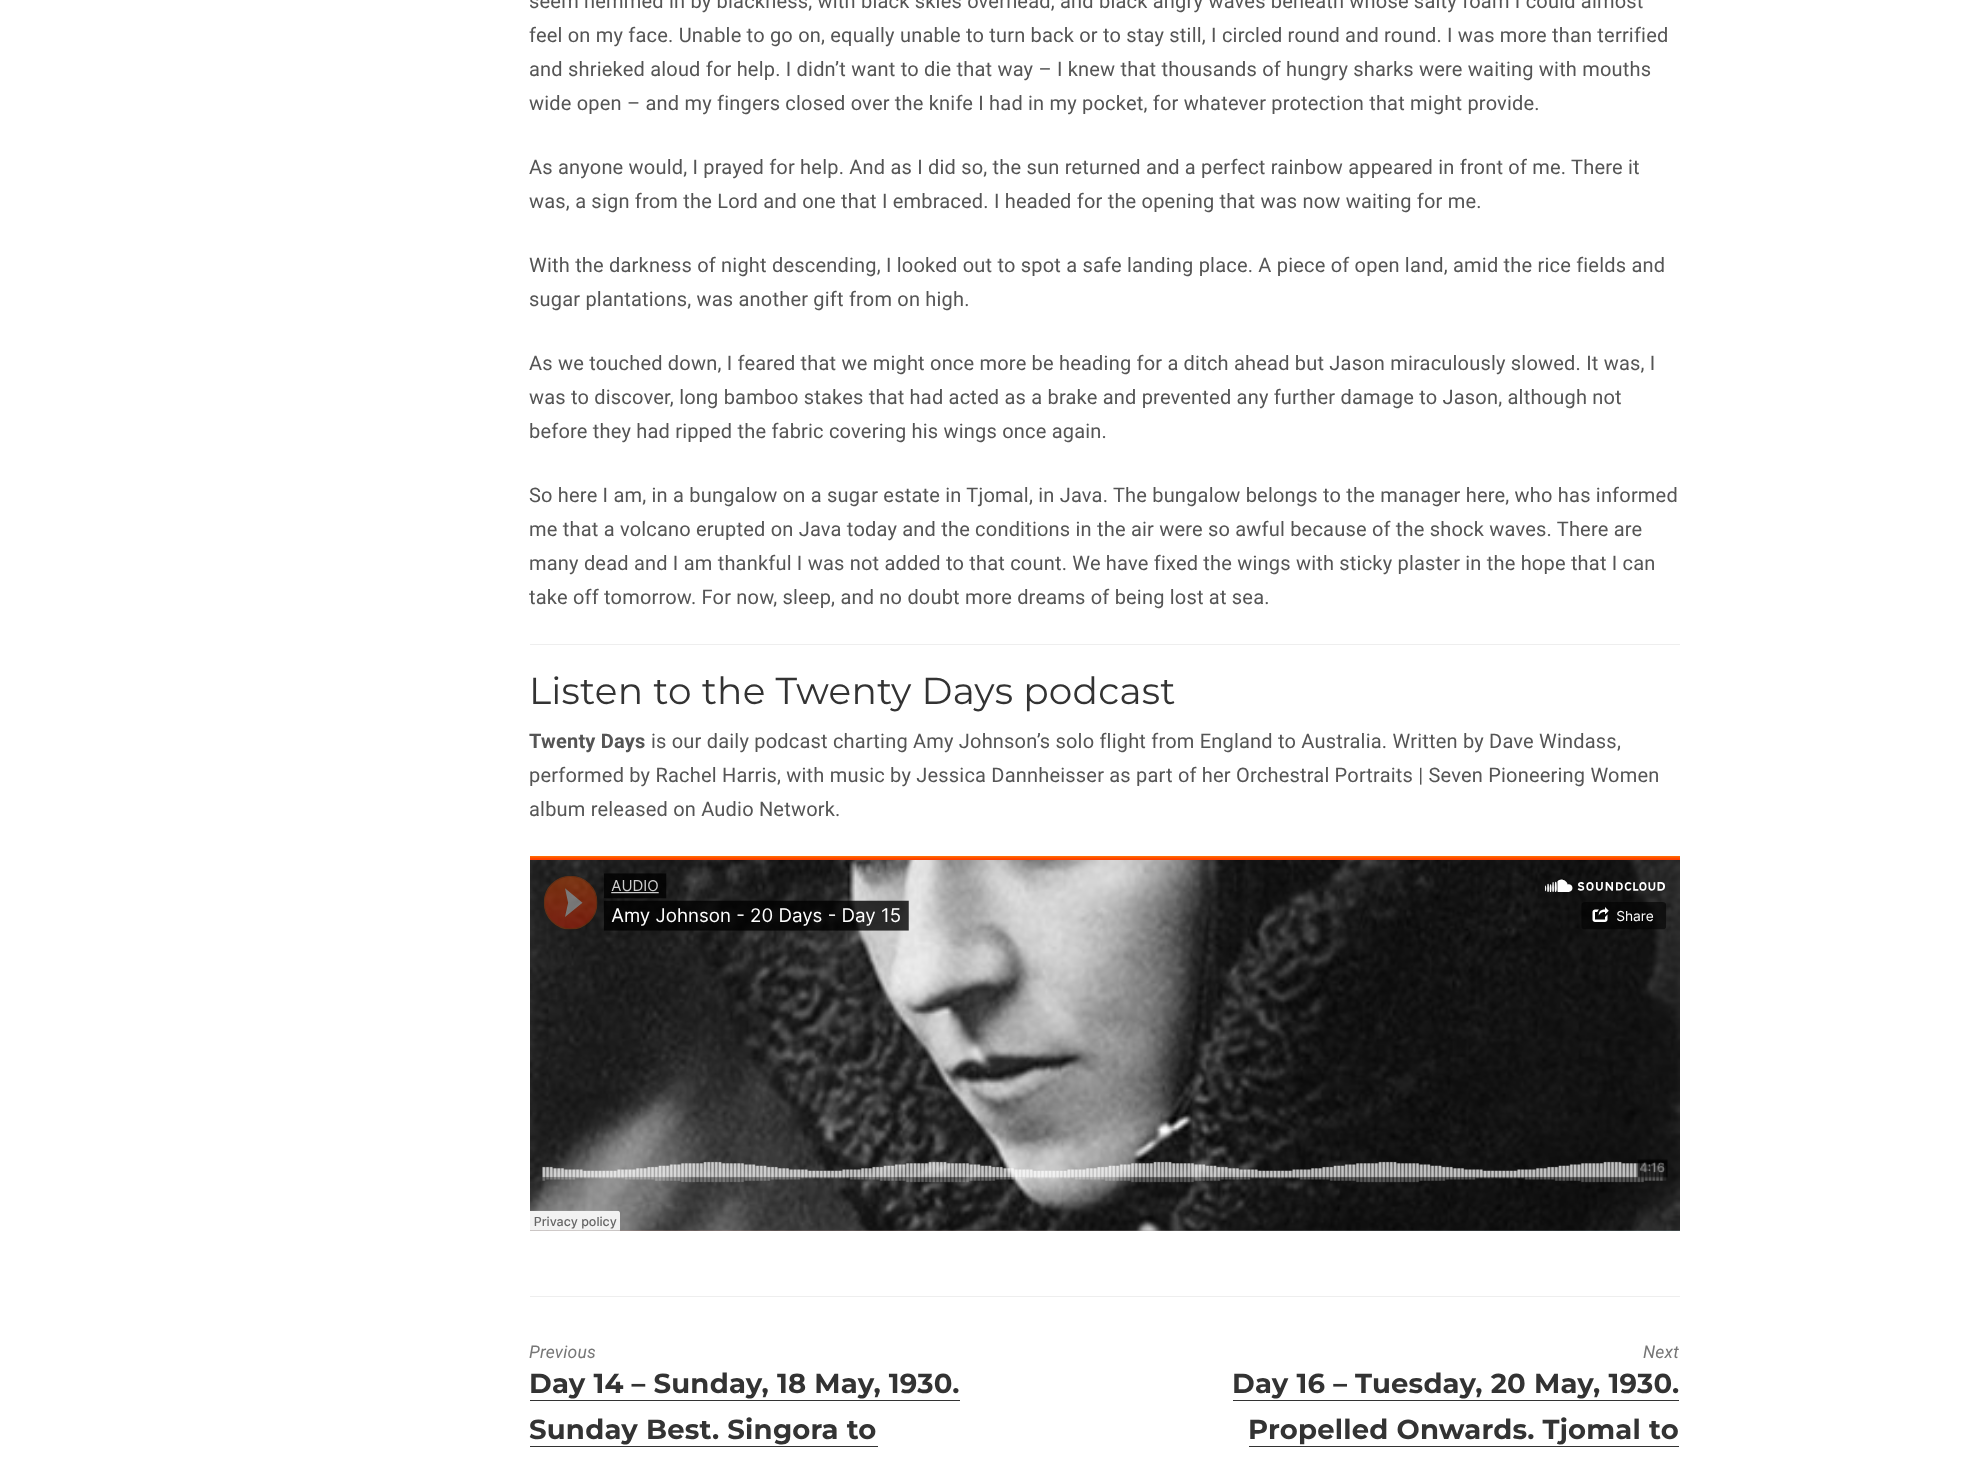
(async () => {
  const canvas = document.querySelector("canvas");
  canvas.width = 1971;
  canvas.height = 1472;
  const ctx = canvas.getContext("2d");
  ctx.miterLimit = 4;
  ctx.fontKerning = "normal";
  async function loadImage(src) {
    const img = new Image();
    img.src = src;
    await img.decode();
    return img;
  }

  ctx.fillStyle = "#ffffff";
  ctx.fillRect(0, 0, 1971, 1472);
  ctx.fillStyle = "#eeeeee";
  ctx.fillRect(530, 644, 1150, 1);
  ctx.drawImage(await loadImage("img/1.png"), 530, 856, 1150, 375);
  for (const [x, y, w, h, color] of [
    [530, 1296, 1150, 1, "#eeeeee"],
    [530, 1400, 430, 1, "#333333"],
    [530, 1446, 348, 1, "#333333"],
    [1233, 1400, 446, 1, "#333333"],
    [1249, 1446, 430, 1, "#333333"],
  ]) {
    ctx.fillStyle = color;
    ctx.fillRect(x, y, w, h);
  }
  ctx.letterSpacing = "0.2px";
  ctx.font = "20px Roboto";
  ctx.fillStyle = "#555555";
  for (const [text, x, y] of [
    ["seem hemmed in by blackness, with black skies overhead, and black angry waves beneath whose salty foam I could almost", 529, 8],
    ["feel on my face. Unable to go on, equally unable to turn back or to stay still, I circled round and round. I was more than terrified", 529, 42],
    ["and shrieked aloud for help. I didn’t want to die that way – I knew that thousands of hungry sharks were waiting with mouths", 529, 76],
    ["wide open – and my fingers closed over the knife I had in my pocket, for whatever protection that might provide.", 529, 110],
    ["As anyone would, I prayed for help. And as I did so, the sun returned and a perfect rainbow appeared in front of me. There it", 529, 174],
    ["was, a sign from the Lord and one that I embraced. I headed for the opening that was now waiting for me.", 529, 208],
    ["With the darkness of night descending, I looked out to spot a safe landing place. A piece of open land, amid the rice fields and", 529, 272],
    ["sugar plantations, was another gift from on high.", 529, 306],
    ["As we touched down, I feared that we might once more be heading for a ditch ahead but Jason miraculously slowed. It was, I", 529, 370],
    ["was to discover, long bamboo stakes that had acted as a brake and prevented any further damage to Jason, although not", 529, 404],
    ["before they had ripped the fabric covering his wings once again.", 529, 438],
    ["So here I am, in a bungalow on a sugar estate in Tjomal, in Java. The bungalow belongs to the manager here, who has informed", 529, 502],
    ["me that a volcano erupted on Java today and the conditions in the air were so awful because of the shock waves. There are", 529, 536],
    ["many dead and I am thankful I was not added to that count. We have fixed the wings with sticky plaster in the hope that I can", 529, 570],
    ["take off tomorrow. For now, sleep, and no doubt more dreams of being lost at sea.", 529, 604],
  ]) {
    ctx.fillText(text, x, y);
  }
  ctx.font = "37.5px Montserrat";
  ctx.fillStyle = "#333333";
  ctx.fillText("Listen to the Twenty Days podcast", 529, 704);
  ctx.font = "bold 20px Roboto";
  ctx.fillStyle = "#555555";
  ctx.fillText("Twenty Days", 529, 748);
  ctx.font = "20px Roboto";
  for (const [text, x, y] of [
    ["is our daily podcast charting Amy Johnson’s solo flight from England to Australia. Written by Dave Windass,", 651, 748],
    ["performed by Rachel Harris, with music by Jessica Dannheisser as part of her Orchestral Portraits | Seven Pioneering Women", 529, 782],
    ["album released on Audio Network.", 529, 816],
  ]) {
    ctx.fillText(text, x, y);
  }
  ctx.font = "italic 17.5px Roboto";
  ctx.fillStyle = "#777777";
  ctx.fillText("Previous", 529, 1358);
  ctx.font = "bold 27.5px Montserrat";
  ctx.fillStyle = "#333333";
  ctx.fillText("Day 14 – Sunday, 18 May, 1930.", 529, 1393);
  ctx.fillText("Sunday Best. Singora to", 529, 1439);
  ctx.font = "italic 17.5px Roboto";
  ctx.fillStyle = "#777777";
  ctx.fillText("Next", 1643, 1358);
  ctx.font = "bold 27.5px Montserrat";
  ctx.fillStyle = "#333333";
  ctx.fillText("Day 16 – Tuesday, 20 May, 1930.", 1232, 1393);
  ctx.fillText("Propelled Onwards. Tjomal to", 1248, 1439);
})();
